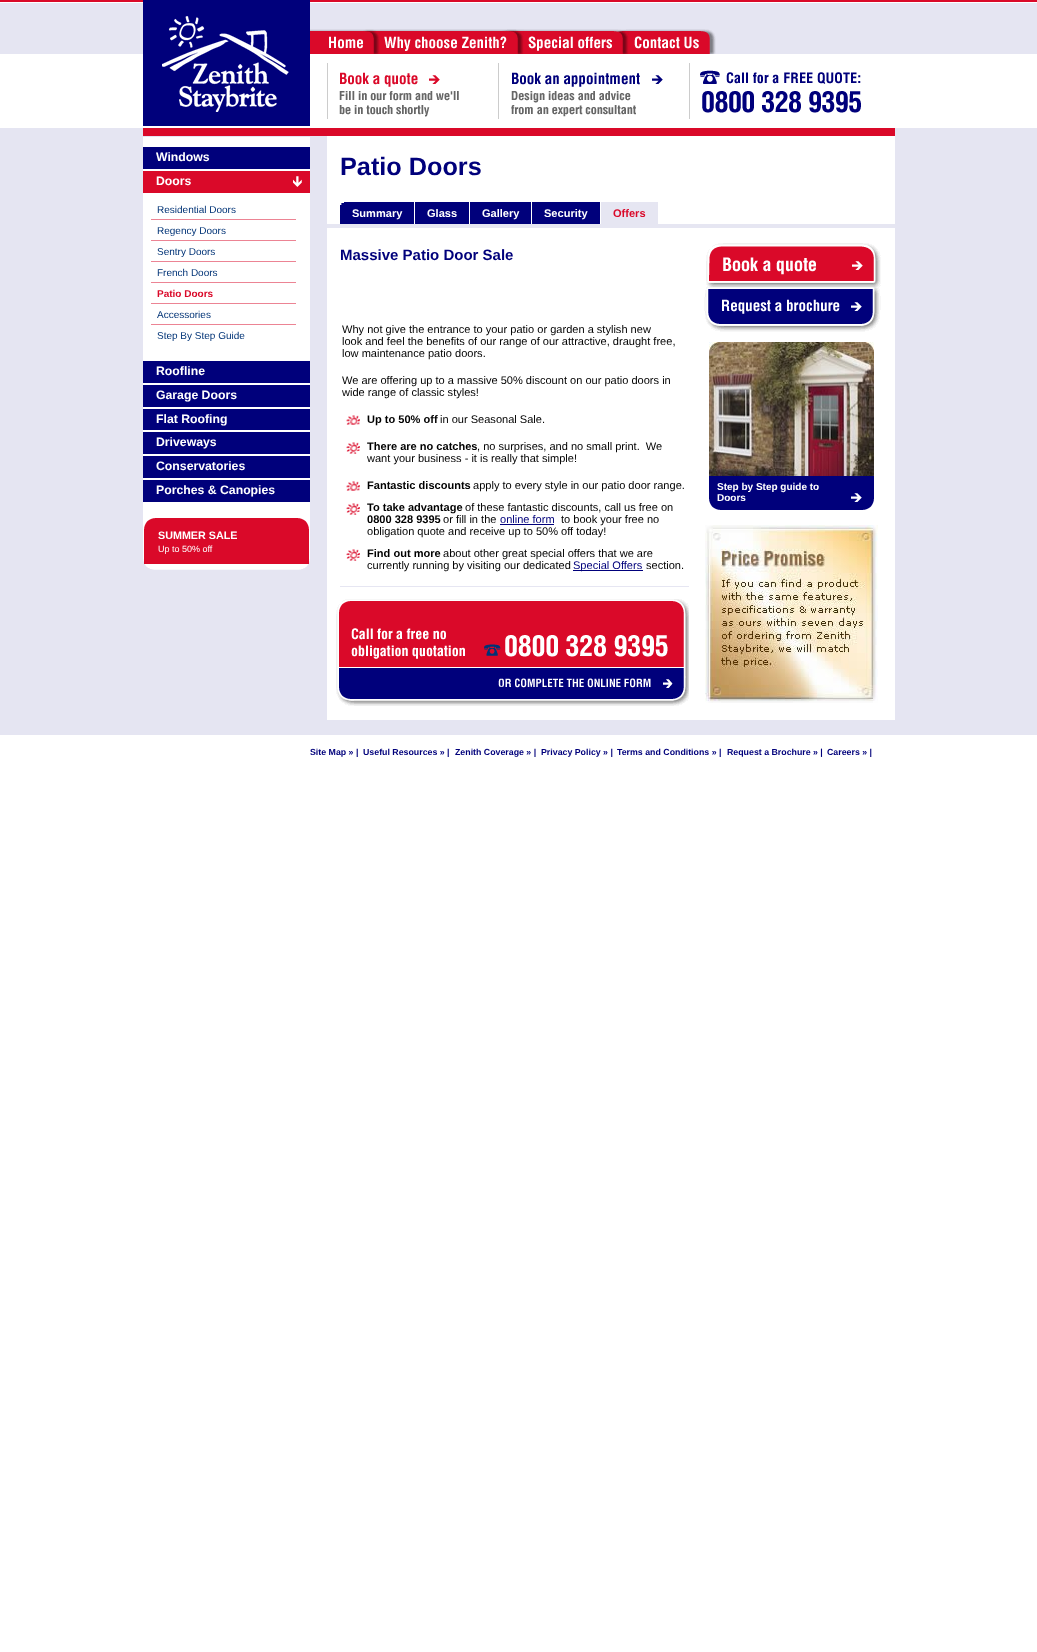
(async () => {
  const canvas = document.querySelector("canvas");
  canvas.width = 1037;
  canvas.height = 1652;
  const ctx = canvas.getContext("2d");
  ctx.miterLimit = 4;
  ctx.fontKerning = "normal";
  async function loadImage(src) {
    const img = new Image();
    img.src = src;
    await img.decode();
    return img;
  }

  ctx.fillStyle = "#ffffff";
  ctx.fillRect(0, 0, 1037, 1652);
  ctx.fillStyle = "#e5e5f2";
  ctx.fillRect(0, 128, 1037, 607);
  ctx.drawImage(await loadImage("img/1.png"), 0, 0, 1037, 128);
  ctx.fillStyle = "#da0929";
  ctx.fillRect(143, 128, 752, 8);
  ctx.drawImage(await loadImage("img/2.png"), 143, 0, 167, 126);
  ctx.drawImage(await loadImage("img/3.png"), 310, 29, 70, 25);
  ctx.drawImage(await loadImage("img/4.png"), 380, 29, 144, 25);
  ctx.drawImage(await loadImage("img/5.png"), 524, 29, 105, 25);
  ctx.drawImage(await loadImage("img/6.png"), 629, 29, 87, 25);
  ctx.fillStyle = "#cccccc";
  ctx.fillRect(327, 63, 1, 56);
  ctx.drawImage(await loadImage("img/7.png"), 339, 72, 120, 45);
  ctx.fillRect(498, 63, 1, 56);
  ctx.drawImage(await loadImage("img/8.png"), 511, 72, 152, 45);
  ctx.fillRect(689, 63, 1, 56);
  ctx.drawImage(await loadImage("img/9.png"), 700, 70, 161, 43);
  ctx.fillStyle = "#ffffff";
  ctx.fillRect(327, 136, 568, 584);
  ctx.fillRect(143, 137, 167, 422);
  ctx.drawImage(await loadImage("img/10.png"), 143, 559, 167, 11);
  ctx.fillStyle = "#00007b";
  ctx.fillRect(143, 147, 167, 22);
  ctx.fillStyle = "#da0929";
  ctx.fillRect(143, 171, 167, 22);
  ctx.drawImage(await loadImage("img/11.png"), 293, 176, 9, 11);
  for (const [x, y, w, h, color] of [
    [151, 219, 145, 1, "#ec8494"],
    [151, 240, 145, 1, "#ec8494"],
    [151, 261, 145, 1, "#ec8494"],
    [151, 282, 145, 1, "#ec8494"],
    [151, 303, 145, 1, "#ec8494"],
    [151, 324, 145, 1, "#ec8494"],
    [143, 361, 167, 22, "#00007b"],
    [143, 385, 167, 22, "#00007b"],
    [143, 409, 167, 21, "#00007b"],
    [143, 432, 167, 22, "#00007b"],
    [143, 456, 167, 22, "#00007b"],
    [143, 480, 167, 22, "#00007b"],
    [144, 529, 165, 35, "#da0929"],
  ]) {
    ctx.fillStyle = color;
    ctx.fillRect(x, y, w, h);
  }
  ctx.drawImage(await loadImage("img/12.png"), 144, 518, 165, 11);
  ctx.fillStyle = "#e6e6f2";
  ctx.fillRect(327, 224, 568, 4);
  ctx.fillStyle = "#00007b";
  ctx.fillRect(340, 202, 74, 22);
  ctx.drawImage(await loadImage("img/13.png"), 340, 202, 4, 3);
  for (const [x, y, w, h, color] of [
    [415, 202, 54, 22, "#00007b"],
    [470, 202, 61, 22, "#00007b"],
    [532, 202, 68, 22, "#00007b"],
    [601, 202, 57, 22, "#e6e6f2"],
  ]) {
    ctx.fillStyle = color;
    ctx.fillRect(x, y, w, h);
  }
  ctx.drawImage(await loadImage("img/14.png"), 346, 415, 14, 10);
  ctx.drawImage(await loadImage("img/15.png"), 346, 442, 14, 12);
  ctx.drawImage(await loadImage("img/14.png"), 346, 481, 14, 10);
  ctx.drawImage(await loadImage("img/15.png"), 346, 503, 14, 12);
  ctx.fillStyle = "#00007b";
  ctx.fillRect(500, 524, 54, 1);
  ctx.drawImage(await loadImage("img/15.png"), 346, 549, 14, 12);
  ctx.fillRect(573, 570, 70, 1);
  ctx.fillStyle = "#e6e6f2";
  ctx.fillRect(340, 586, 349, 1);
  ctx.drawImage(await loadImage("img/16.png"), 336, 599, 353, 107);
  ctx.drawImage(await loadImage("img/17.png"), 706, 243, 175, 44);
  ctx.drawImage(await loadImage("img/18.png"), 704, 287, 177, 45);
  ctx.drawImage(await loadImage("img/19.png"), 709, 342, 165, 134);
  ctx.fillStyle = "#00007b";
  ctx.fillRect(709, 476, 165, 23);
  ctx.drawImage(await loadImage("img/20.png"), 709, 499, 165, 11);
  ctx.drawImage(await loadImage("img/21.png"), 851, 493, 11, 9);
  ctx.drawImage(await loadImage("img/22.png"), 705, 525, 173, 178);
  ctx.font = "bold 12.25px Liberation Sans";
  ctx.fillStyle = "#ffffff";
  ctx.fillText("Windows", 156, 161);
  ctx.fillText("Doors", 156, 185);
  ctx.font = "10px Liberation Sans";
  ctx.fillStyle = "#003376";
  for (const [text, x, y] of [
    ["Residential Doors", 157, 213],
    ["Regency Doors", 157, 234],
    ["Sentry Doors", 157, 255],
    ["French Doors", 157, 276],
  ]) {
    ctx.fillText(text, x, y);
  }
  ctx.font = "bold 10px Liberation Sans";
  ctx.fillStyle = "#da0929";
  ctx.fillText("Patio Doors", 157, 297);
  ctx.font = "10px Liberation Sans";
  ctx.fillStyle = "#003376";
  ctx.fillText("Accessories", 157, 318);
  ctx.fillText("Step By Step Guide", 157, 339);
  ctx.font = "bold 12.25px Liberation Sans";
  ctx.fillStyle = "#ffffff";
  for (const [text, x, y] of [
    ["Roofline", 156, 375],
    ["Garage Doors", 156, 399],
    ["Flat Roofing", 156, 423],
    ["Driveways", 156, 446],
    ["Conservatories", 156, 470],
    ["Porches & Canopies", 156, 494],
  ]) {
    ctx.fillText(text, x, y);
  }
  ctx.font = "bold 10.75px Liberation Sans";
  ctx.fillText("SUMMER SALE", 158, 539);
  ctx.font = "9px Liberation Sans";
  ctx.fillText("Up to 50% off", 158, 552);
  ctx.font = "bold 25.25px Liberation Sans";
  ctx.fillStyle = "#00007b";
  ctx.fillText("Patio Doors", 340, 175);
  ctx.font = "bold 11.05px Liberation Sans";
  ctx.fillStyle = "#ffffff";
  for (const [text, x, y] of [
    ["Summary", 352, 217],
    ["Glass", 427, 217],
    ["Gallery", 482, 217],
    ["Security", 544, 217],
  ]) {
    ctx.fillText(text, x, y);
  }
  ctx.fillStyle = "#da0929";
  ctx.fillText("Offers", 613, 217);
  ctx.font = "bold 15px Liberation Sans";
  ctx.fillStyle = "#00007b";
  ctx.fillText("Massive Patio Door Sale", 340, 260);
  ctx.font = "11.05px Liberation Sans";
  ctx.fillStyle = "#000000";
  for (const [text, x, y] of [
    ["Why not give the entrance to your patio or garden a stylish new", 342, 333],
    ["look and feel the benefits of our range of our attractive, draught free,", 342, 345],
    ["low maintenance patio doors.", 342, 357],
    ["We are offering up to a massive 50% discount on our patio doors in", 342, 384],
    ["wide range of classic styles!", 342, 396],
  ]) {
    ctx.fillText(text, x, y);
  }
  ctx.font = "bold 11.05px Liberation Sans";
  ctx.fillText("Up to 50% off", 367, 423);
  ctx.font = "11.05px Liberation Sans";
  ctx.fillText("in our Seasonal Sale.", 440, 423);
  ctx.font = "bold 11.05px Liberation Sans";
  ctx.fillText("There are no catches", 367, 450);
  ctx.font = "11.05px Liberation Sans";
  ctx.fillText(", no surprises, and no small print.  We", 477, 450);
  ctx.fillText("want your business - it is really that simple!", 367, 462);
  ctx.font = "bold 11.05px Liberation Sans";
  ctx.fillText("Fantastic discounts", 367, 489);
  ctx.font = "11.05px Liberation Sans";
  ctx.fillText("apply to every style in our patio door range.", 473, 489);
  ctx.font = "bold 11.05px Liberation Sans";
  ctx.fillText("To take advantage", 367, 511);
  ctx.font = "11.05px Liberation Sans";
  ctx.fillText("of these fantastic discounts, call us free on", 465, 511);
  ctx.font = "bold 11.05px Liberation Sans";
  ctx.fillText("0800 328 9395", 367, 523);
  ctx.font = "11.05px Liberation Sans";
  ctx.fillText("or fill in the", 443, 523);
  ctx.fillStyle = "#00007b";
  ctx.fillText("online form", 500, 523);
  ctx.fillStyle = "#000000";
  ctx.fillText("to book your free no", 561, 523);
  ctx.fillText("obligation quote and receive up to 50% off today!", 367, 535);
  ctx.font = "bold 11.05px Liberation Sans";
  ctx.fillText("Find out more", 367, 557);
  ctx.font = "11.05px Liberation Sans";
  ctx.fillText("about other great special offers that we are", 443, 557);
  ctx.fillText("currently running by visiting our dedicated", 367, 569);
  ctx.fillStyle = "#00007b";
  ctx.fillText("Special Offers", 573, 569);
  ctx.fillStyle = "#000000";
  ctx.fillText("section.", 646, 569);
  ctx.font = "bold 10px Liberation Sans";
  ctx.fillStyle = "#ffffff";
  ctx.fillText("Step by Step guide to", 717, 490);
  ctx.fillText("Doors", 717, 501);
  ctx.font = "bold 8.8px Liberation Sans";
  ctx.fillStyle = "#00007b";
  for (const [text, x, y] of [
    ["Site Map » |", 310, 755],
    ["Useful Resources » |", 363, 755],
    ["Zenith Coverage » |", 455, 755],
    ["Privacy Policy » |", 541, 755],
    ["Terms and Conditions » |", 617, 755],
    ["Request a Brochure » |", 727, 755],
    ["Careers » |", 827, 755],
  ]) {
    ctx.fillText(text, x, y);
  }
})();
